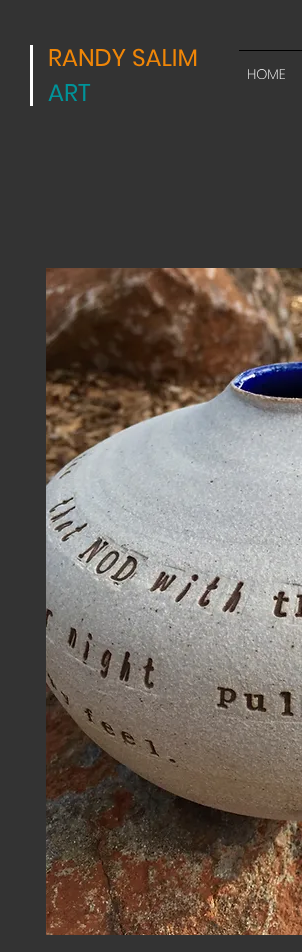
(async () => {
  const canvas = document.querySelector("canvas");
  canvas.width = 302;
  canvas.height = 952;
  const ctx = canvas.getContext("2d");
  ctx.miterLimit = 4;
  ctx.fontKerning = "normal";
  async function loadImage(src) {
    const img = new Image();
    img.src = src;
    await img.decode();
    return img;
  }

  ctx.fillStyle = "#333333";
  ctx.fillRect(0, 0, 302, 952);
  ctx.fillStyle = "#ffffff";
  ctx.fillRect(30, 45, 3, 61);
  ctx.fillStyle = "#000000";
  ctx.fillRect(239, 50, 63, 1);
  ctx.drawImage(await loadImage("img/1.png"), 46, 268, 256, 667);
  ctx.font = "24px Poppins";
  ctx.fillStyle = "#ef8608";
  ctx.fillText("RANDY SALIM", 48, 66);
  ctx.fillStyle = "#009399";
  ctx.fillText("ART", 48, 101);
  ctx.font = "200 14px Poppins";
  ctx.fillStyle = "#ffffff";
  ctx.fillText("HOME", 247, 79);
})();
